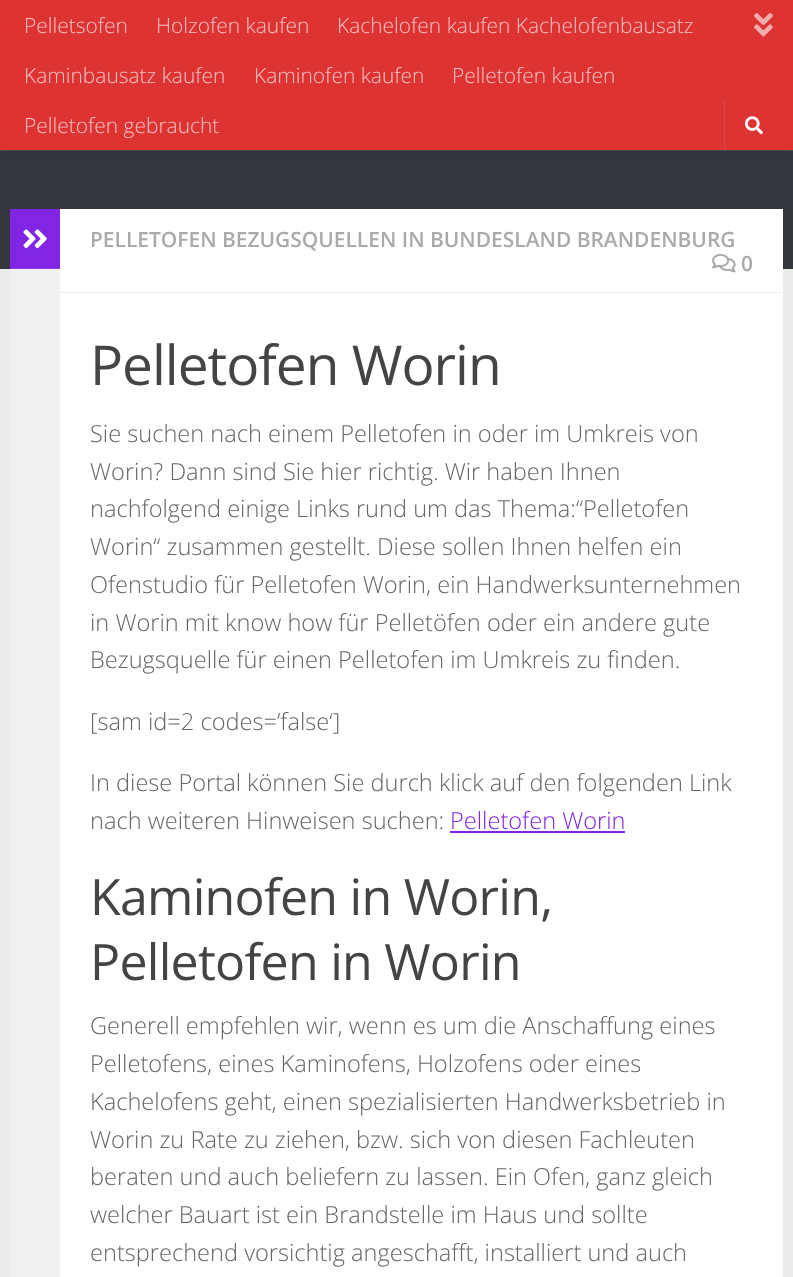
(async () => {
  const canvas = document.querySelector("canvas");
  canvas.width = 793;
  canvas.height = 1277;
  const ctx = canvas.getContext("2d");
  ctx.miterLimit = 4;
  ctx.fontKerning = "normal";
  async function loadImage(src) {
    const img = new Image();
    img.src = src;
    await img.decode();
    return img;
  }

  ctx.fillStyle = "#eaeaea";
  ctx.fillRect(0, 0, 793, 1277);
  ctx.fillStyle = "#33363b";
  ctx.fillRect(0, 150, 793, 119);
  ctx.fillStyle = "rgba(255, 255, 255, 0.15)";
  ctx.fillRect(0, 150, 793, 1);
  ctx.fillStyle = "rgba(0, 0, 0, 0.2)";
  ctx.filter = "blur(2.5px)";
  ctx.beginPath();
  ctx.rect(0, 0, 793, 150);
  ctx.fill();
  ctx.filter = "none";
  ctx.fillStyle = "#dd3333";
  ctx.fillRect(0, 0, 793, 150);
  ctx.fillStyle = "#e04747";
  ctx.fillRect(724, 100, 1, 50);
  ctx.drawImage(await loadImage("img/1.png"), 745, 116, 18, 19);
  ctx.drawImage(await loadImage("img/2.png"), 754, 13, 19, 24);
  for (const [x, y, w, h, color] of [
    [60, 209, 723, 1068, "#ffffff"],
    [10, 269, 50, 1008, "#f0f0f0"],
    [10, 209, 50, 59, "#8224e3"],
    [10, 268, 50, 1, "#8f3ae6"],
  ]) {
    ctx.fillStyle = color;
    ctx.fillRect(x, y, w, h);
  }
  ctx.drawImage(await loadImage("img/3.png"), 23, 229, 24, 20);
  ctx.fillStyle = "#eeeeee";
  ctx.fillRect(60, 292, 723, 1);
  ctx.drawImage(await loadImage("img/4.png"), 712, 254, 24, 19);
  ctx.fillStyle = "#8224e3";
  ctx.fillRect(450, 831, 175, 2);
  ctx.font = "300 20.95px Open Sans";
  ctx.fillStyle = "#f5c2c2";
  for (const [text, x, y] of [
    ["Pelletsofen", 24, 33],
    ["Holzofen kaufen", 156, 33],
    ["Kachelofen kaufen Kachelofenbausatz", 337, 33],
    ["Kaminbausatz kaufen", 24, 83],
    ["Kaminofen kaufen", 254, 83],
    ["Pelletofen kaufen", 452, 83],
    ["Pelletofen gebraucht", 24, 133],
  ]) {
    ctx.fillText(text, x, y);
  }
  ctx.font = "600 20.95px Open Sans";
  ctx.fillStyle = "#aaaaaa";
  ctx.fillText("PELLETOFEN BEZUGSQUELLEN IN BUNDESLAND BRANDENBURG", 90, 247);
  ctx.fillText("0", 741, 271);
  ctx.letterSpacing = "-1px";
  ctx.font = "55px Open Sans";
  ctx.fillStyle = "#444444";
  ctx.fillText("Pelletofen Worin", 90, 385);
  ctx.letterSpacing = "0px";
  ctx.font = "300 23.6px Open Sans";
  ctx.fillStyle = "#666666";
  for (const [text, x, y] of [
    ["Sie suchen nach einem Pelletofen in oder im Umkreis von", 90, 442],
    ["Worin? Dann sind Sie hier richtig. Wir haben Ihnen", 90, 480],
    ["nachfolgend einige Links rund um das Thema:“Pelletofen", 90, 517],
    ["Worin“ zusammen gestellt. Diese sollen Ihnen helfen ein", 90, 555],
    ["Ofenstudio für Pelletofen Worin, ein Handwerksunternehmen", 90, 593],
    ["in Worin mit know how für Pelletöfen oder ein andere gute", 90, 631],
    ["Bezugsquelle für einen Pelletofen im Umkreis zu finden.", 90, 668],
    ["[sam id=2 codes=’false‘]", 90, 730],
    ["In diese Portal können Sie durch klick auf den folgenden Link", 90, 791],
    ["nach weiteren Hinweisen suchen:", 90, 829],
  ]) {
    ctx.fillText(text, x, y);
  }
  ctx.fillStyle = "#8224e3";
  ctx.fillText("Pelletofen Worin", 450, 829);
  ctx.letterSpacing = "-0.75px";
  ctx.font = "50.1px Open Sans";
  ctx.fillStyle = "#444444";
  ctx.fillText("Kaminofen in Worin,", 90, 915);
  ctx.fillText("Pelletofen in Worin", 90, 980);
  ctx.letterSpacing = "0px";
  ctx.font = "300 23.6px Open Sans";
  ctx.fillStyle = "#666666";
  for (const [text, x, y] of [
    ["Generell empfehlen wir, wenn es um die Anschaffung eines", 90, 1034],
    ["Pelletofens, eines Kaminofens, Holzofens oder eines", 90, 1072],
    ["Kachelofens geht, einen spezialisierten Handwerksbetrieb in", 90, 1110],
    ["Worin zu Rate zu ziehen, bzw. sich von diesen Fachleuten", 90, 1148],
    ["beraten und auch beliefern zu lassen. Ein Ofen, ganz gleich", 90, 1185],
    ["welcher Bauart ist ein Brandstelle im Haus und sollte", 90, 1223],
    ["entsprechend vorsichtig angeschafft, installiert und auch", 90, 1261],
  ]) {
    ctx.fillText(text, x, y);
  }
})();
